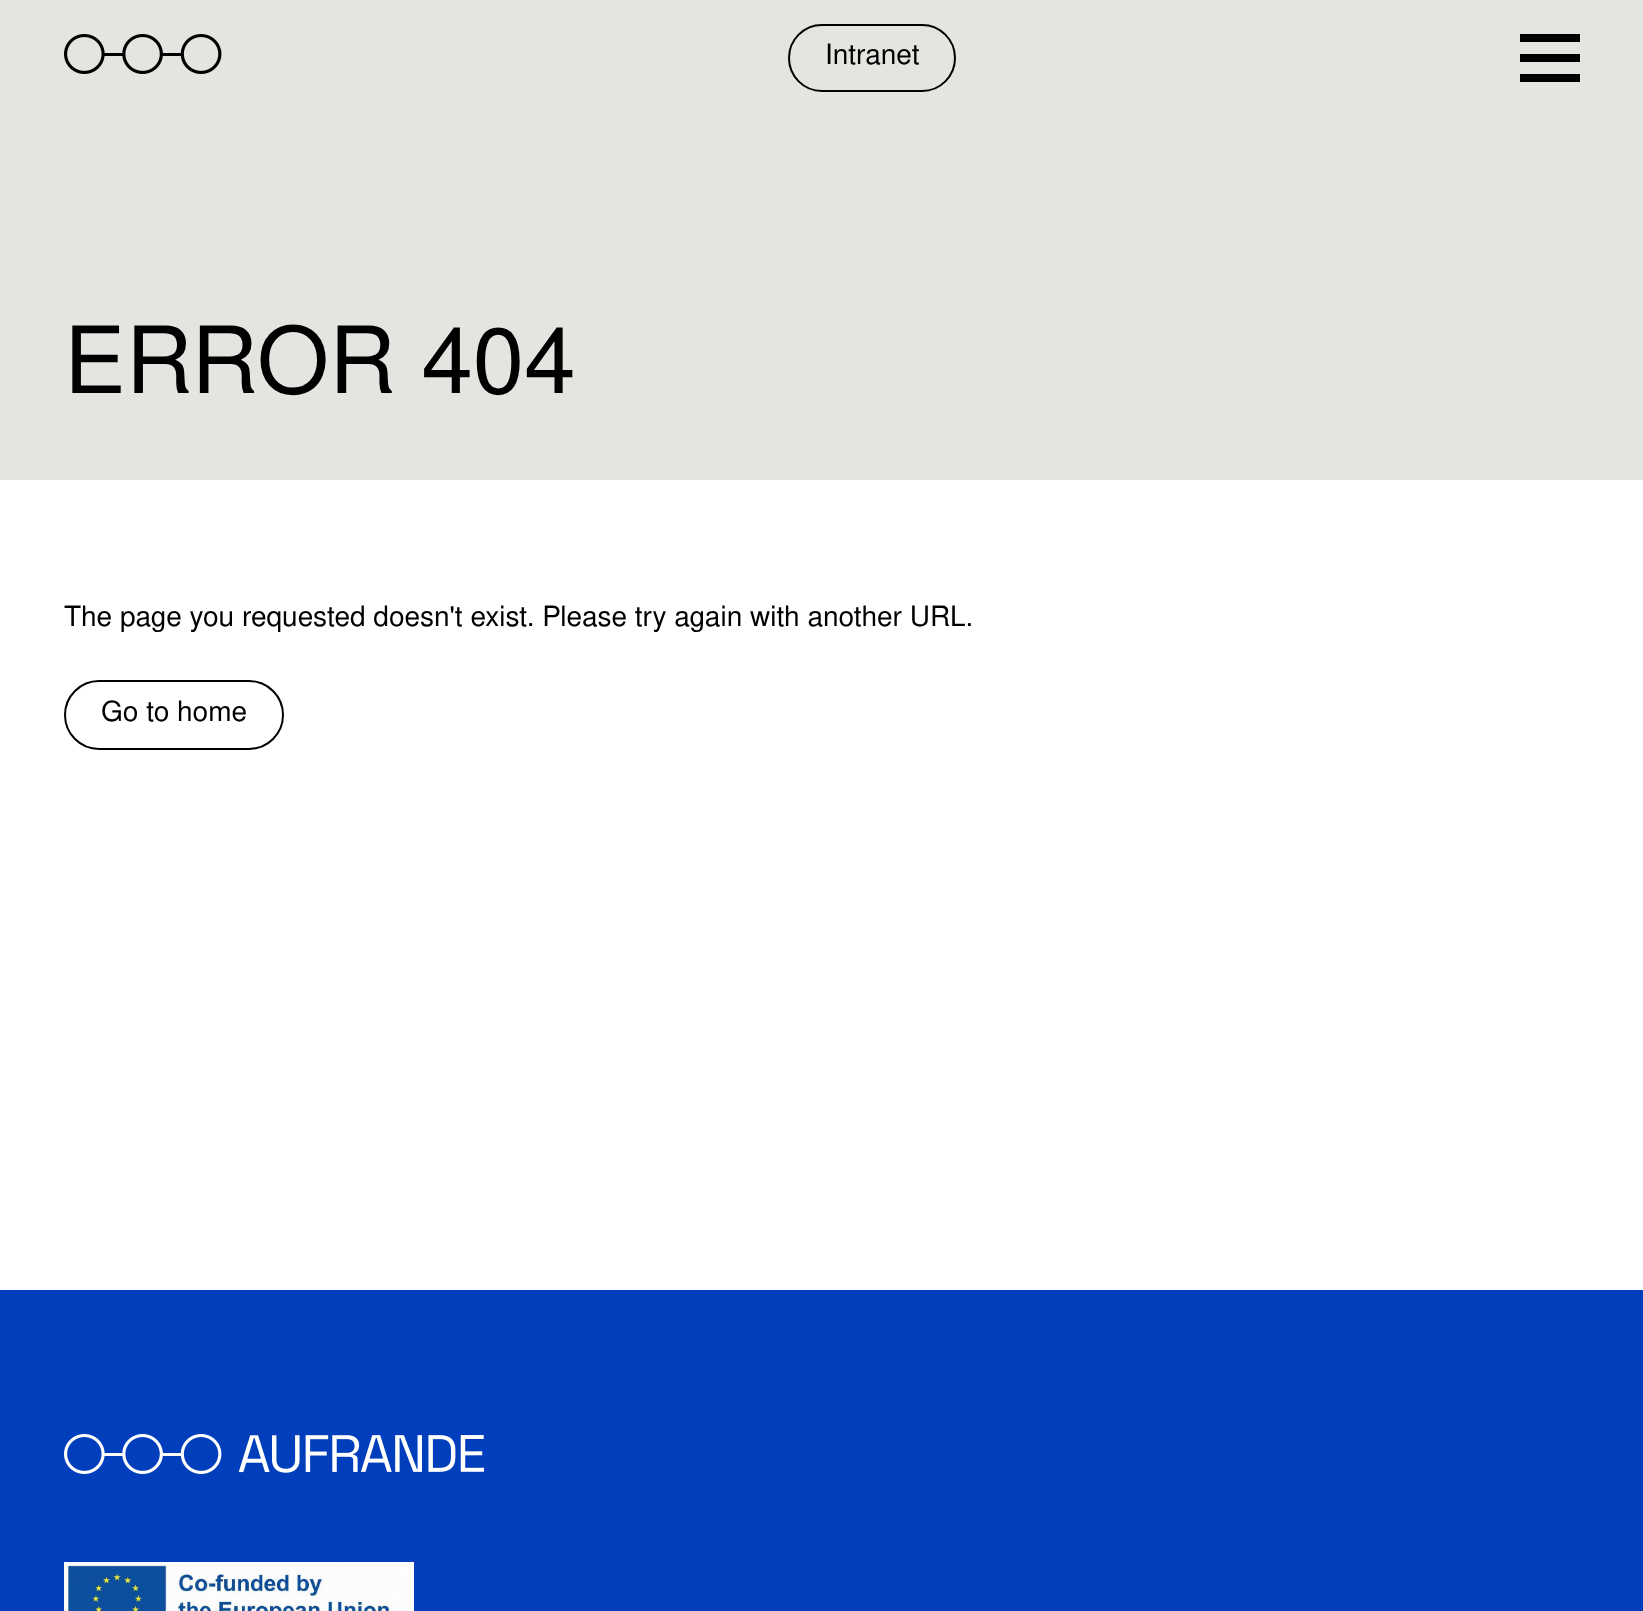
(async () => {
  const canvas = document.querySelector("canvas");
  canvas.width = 1643;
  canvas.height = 1611;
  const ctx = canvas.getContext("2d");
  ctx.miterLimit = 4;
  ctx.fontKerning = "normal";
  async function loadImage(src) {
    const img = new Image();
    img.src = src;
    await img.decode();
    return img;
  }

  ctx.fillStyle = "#ffffff";
  ctx.fillRect(0, 0, 1643, 1611);
  ctx.fillStyle = "#e3e5e0";
  ctx.fillRect(0, 0, 1643, 480);
  ctx.drawImage(await loadImage("img/1.png"), 64, 34, 158, 40);
  ctx.beginPath();
  ctx.roundRect(789, 25, 166, 66, 33);
  ctx.strokeStyle = "#000000";
  ctx.lineWidth = 2;
  ctx.stroke();
  for (const [x, y, w, h, color] of [
    [1520, 54, 60, 8, "#000000"],
    [1520, 34, 60, 8, "#000000"],
    [1520, 74, 60, 8, "#000000"],
  ]) {
    ctx.fillStyle = color;
    ctx.fillRect(x, y, w, h);
  }
  ctx.beginPath();
  ctx.roundRect(65, 681, 218, 68, 34);
  ctx.stroke();
  ctx.fillStyle = "#003ebb";
  ctx.fillRect(0, 1290, 1643, 321);
  ctx.drawImage(await loadImage("img/2.png"), 64, 1434, 420, 40);
  ctx.drawImage(await loadImage("img/3.png"), 64, 1562, 350, 49);
  ctx.font = "28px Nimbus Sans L";
  ctx.fillStyle = "#000000";
  ctx.fillText("Intranet", 825, 64);
  ctx.font = "92.5px Nimbus Sans L";
  ctx.fillText("ERROR 404", 64, 393);
  ctx.font = "28px Nimbus Sans L";
  ctx.fillText("The page you requested doesn't exist. Please try again with another URL.", 64, 626);
  ctx.fillText("Go to home", 101, 721);
})();
